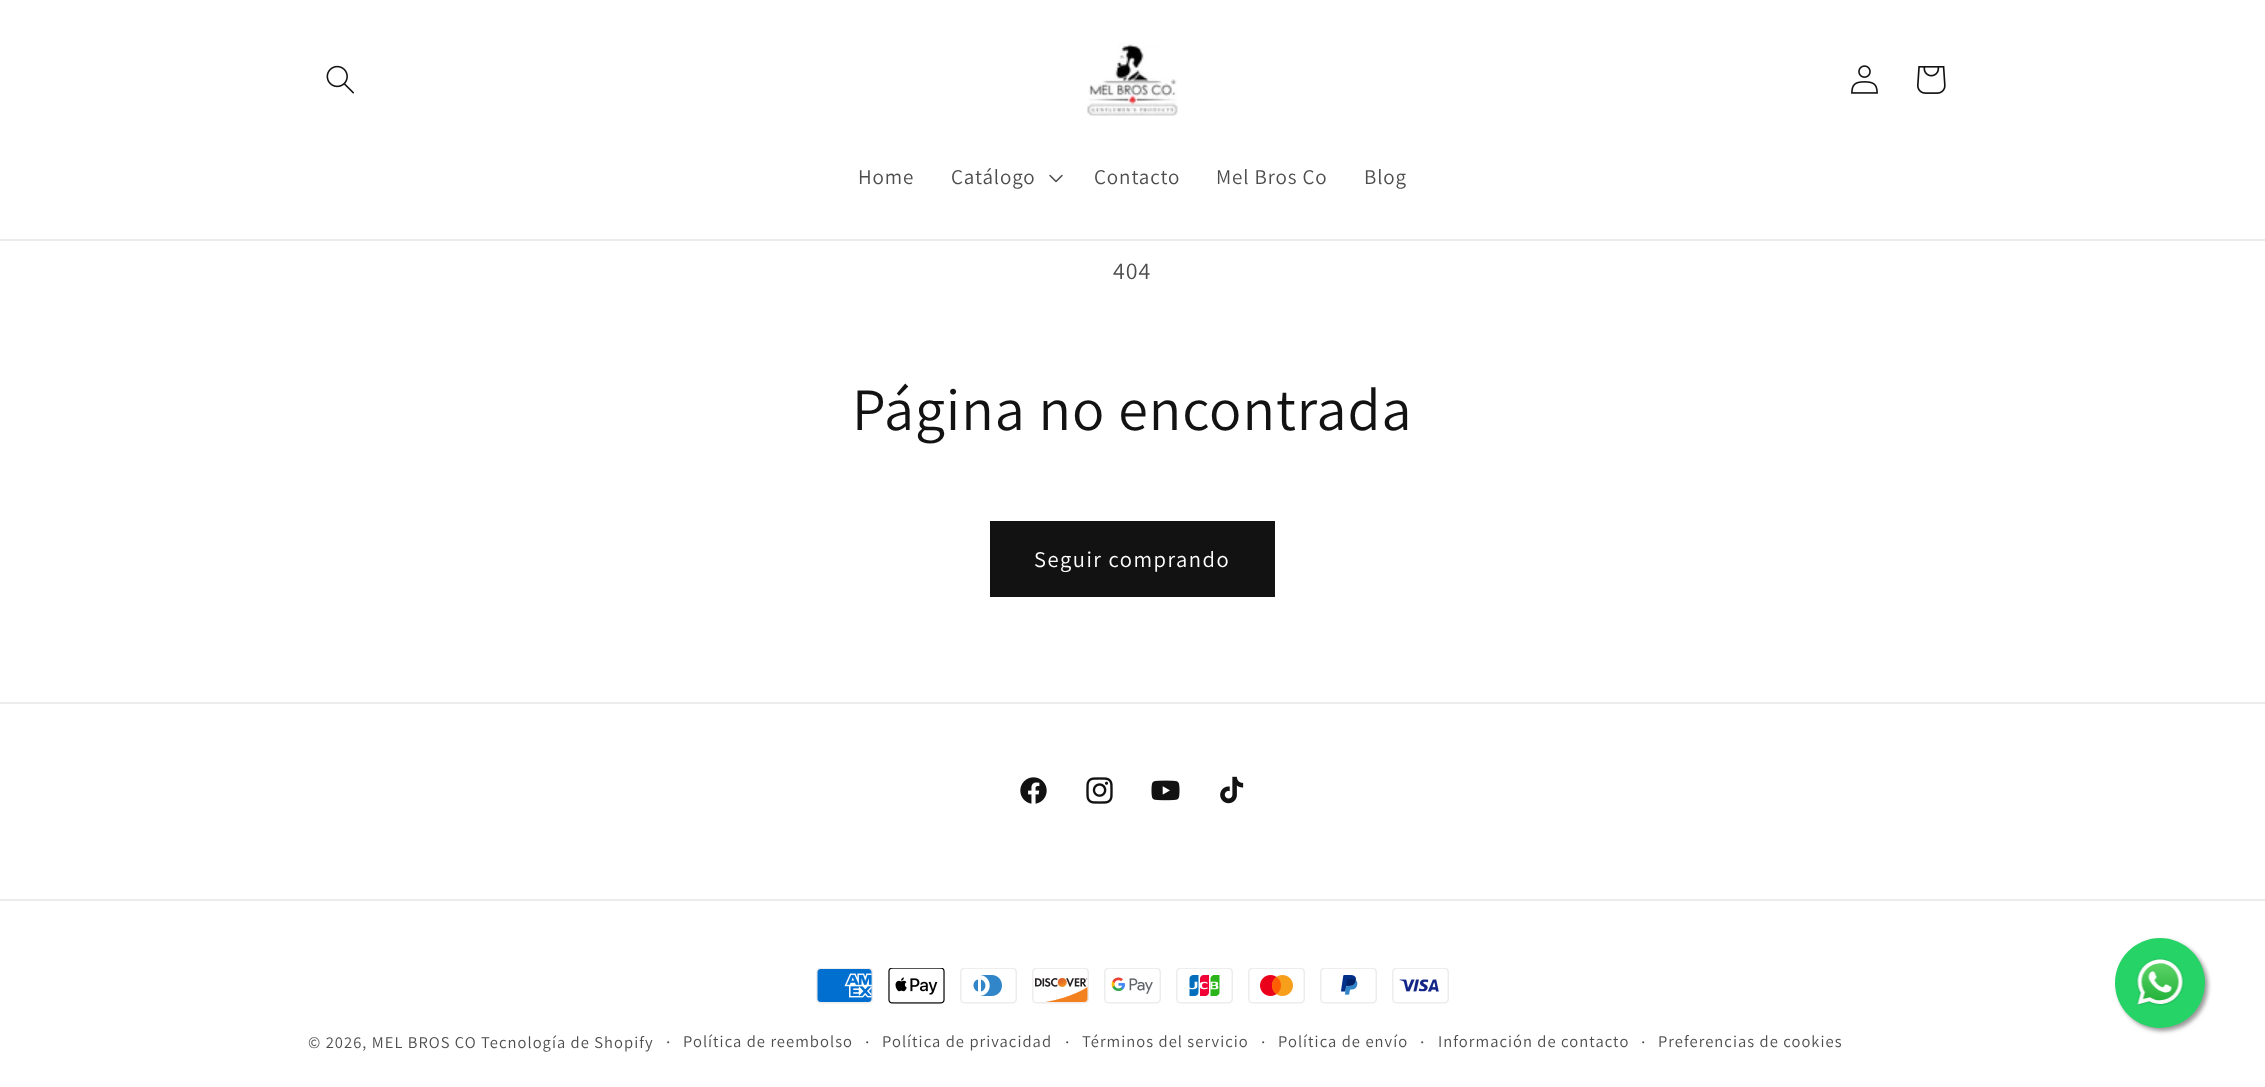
(async () => {
  const canvas = document.querySelector("canvas");
  canvas.width = 2265;
  canvas.height = 1087;
  const ctx = canvas.getContext("2d");
  ctx.miterLimit = 4;
  ctx.fontKerning = "normal";
  async function loadImage(src) {
    const img = new Image();
    img.src = src;
    await img.decode();
    return img;
  }

  ctx.fillStyle = "#ffffff";
  ctx.fillRect(0, 0, 2265, 1087);
  ctx.fillStyle = "#ececec";
  ctx.fillRect(0, 239, 2265, 2);
  ctx.drawImage(await loadImage("img/1.png"), 326, 65, 28, 29);
  ctx.drawImage(await loadImage("img/2.png"), 1087, 42, 91, 74);
  ctx.drawImage(await loadImage("img/3.png"), 1851, 65, 27, 29);
  ctx.drawImage(await loadImage("img/4.png"), 1917, 66, 29, 28);
  ctx.drawImage(await loadImage("img/5.png"), 1049, 174, 14, 9);
  ctx.fillStyle = "#121212";
  ctx.fillRect(990, 521, 285, 76);
  ctx.fillStyle = "#999999";
  ctx.filter = "blur(2px)";
  ctx.beginPath();
  ctx.roundRect(2118, 941, 90, 90, 45);
  ctx.fill();
  ctx.filter = "none";
  ctx.fillStyle = "#25d366";
  ctx.beginPath();
  ctx.arc(2160, 983, 45, 0, Math.PI * 2);
  ctx.fill();
  ctx.drawImage(await loadImage("img/6.png"), 2136, 958, 48, 48);
  ctx.fillStyle = "#ececec";
  ctx.fillRect(0, 702, 2265, 2);
  ctx.drawImage(await loadImage("img/7.png"), 1020, 777, 27, 27);
  ctx.drawImage(await loadImage("img/8.png"), 1086, 777, 27, 27);
  ctx.drawImage(await loadImage("img/9.png"), 1151, 780, 29, 21);
  ctx.drawImage(await loadImage("img/10.png"), 1220, 776, 24, 28);
  ctx.fillRect(0, 899, 2265, 2);
  ctx.drawImage(await loadImage("img/11.png"), 816, 968, 57, 36);
  ctx.drawImage(await loadImage("img/12.png"), 888, 968, 57, 36);
  ctx.drawImage(await loadImage("img/13.png"), 960, 968, 57, 36);
  ctx.drawImage(await loadImage("img/14.png"), 1032, 968, 57, 36);
  ctx.drawImage(await loadImage("img/15.png"), 1104, 968, 57, 36);
  ctx.drawImage(await loadImage("img/16.png"), 1176, 968, 57, 36);
  ctx.drawImage(await loadImage("img/17.png"), 1248, 968, 57, 36);
  ctx.drawImage(await loadImage("img/18.png"), 1320, 968, 57, 36);
  ctx.drawImage(await loadImage("img/19.png"), 1392, 968, 57, 36);
  ctx.letterSpacing = "0.9px";
  ctx.font = "21px Assistant";
  ctx.fillStyle = "#4d4d4d";
  for (const [text, x, y] of [
    ["Home", 858, 184],
    ["Catálogo", 951, 184],
    ["Contacto", 1094, 184],
    ["Mel Bros Co", 1216, 184],
    ["Blog", 1364, 184],
  ]) {
    ctx.fillText(text, x, y);
  }
  ctx.font = "24px Assistant";
  ctx.fillText("404", 1113, 279);
  ctx.font = "60px Assistant";
  ctx.fillStyle = "#121212";
  ctx.fillText("Página no encontrada", 852, 430);
  ctx.letterSpacing = "1.5px";
  ctx.font = "22.5px Assistant";
  ctx.fillStyle = "#ffffff";
  ctx.fillText("Seguir comprando", 1034, 567);
  ctx.letterSpacing = "1.05px";
  ctx.font = "16.5px Assistant";
  ctx.fillStyle = "#4d4d4d";
  ctx.fillText("© 2026, MEL BROS CO", 308, 1048);
  ctx.fillText("Tecnología de Shopify", 481, 1048);
  ctx.font = "18px Assistant";
  ctx.fillText("·", 666, 1048);
  ctx.font = "16.5px Assistant";
  ctx.fillText("Política de reembolso", 683, 1047);
  ctx.font = "18px Assistant";
  ctx.fillText("·", 865, 1048);
  ctx.font = "16.5px Assistant";
  ctx.fillText("Política de privacidad", 882, 1047);
  ctx.font = "18px Assistant";
  ctx.fillText("·", 1065, 1048);
  ctx.font = "16.5px Assistant";
  ctx.fillText("Términos del servicio", 1082, 1047);
  ctx.font = "18px Assistant";
  ctx.fillText("·", 1261, 1048);
  ctx.font = "16.5px Assistant";
  ctx.fillText("Política de envío", 1278, 1047);
  ctx.font = "18px Assistant";
  ctx.fillText("·", 1420, 1048);
  ctx.font = "16.5px Assistant";
  ctx.fillText("Información de contacto", 1438, 1047);
  ctx.font = "18px Assistant";
  ctx.fillText("·", 1641, 1048);
  ctx.font = "16.5px Assistant";
  ctx.fillText("Preferencias de cookies", 1658, 1047);
})();
